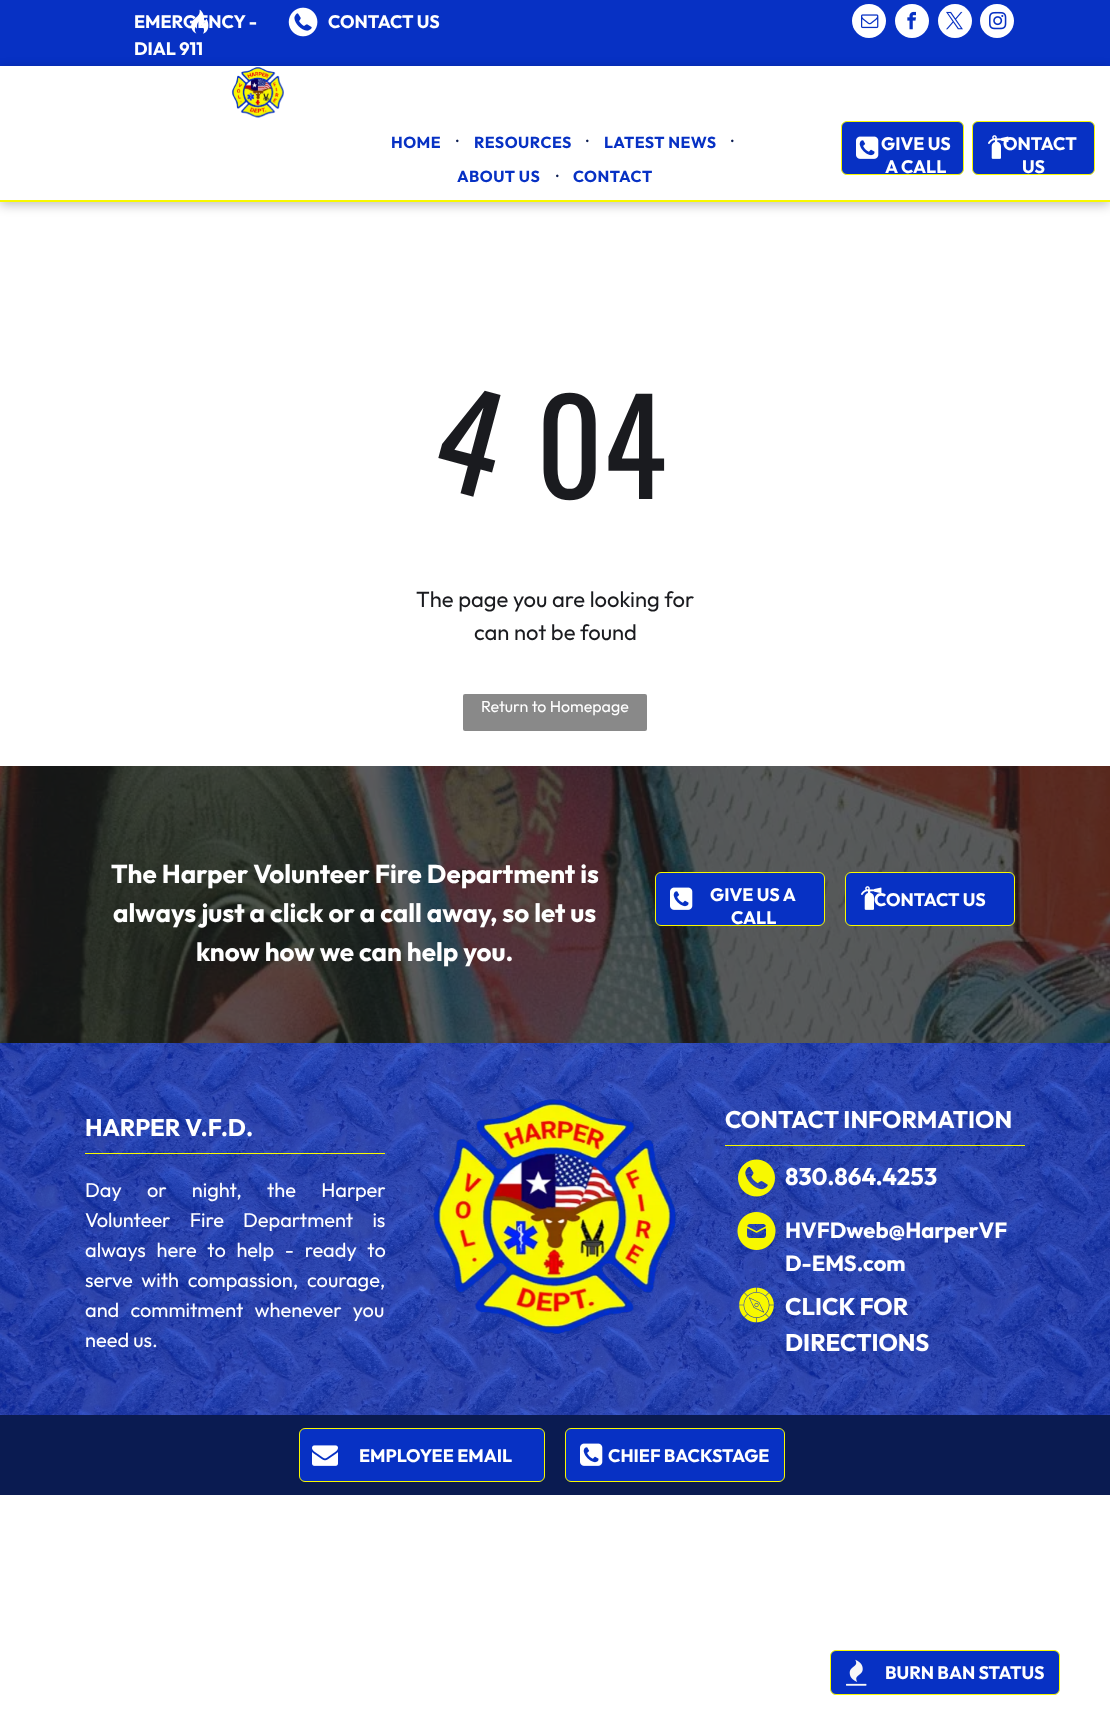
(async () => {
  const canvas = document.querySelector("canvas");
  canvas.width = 1110;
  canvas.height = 1735;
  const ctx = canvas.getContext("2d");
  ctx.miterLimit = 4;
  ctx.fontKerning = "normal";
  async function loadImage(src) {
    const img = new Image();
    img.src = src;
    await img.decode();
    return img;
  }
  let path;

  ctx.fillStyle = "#ffffff";
  ctx.fillRect(0, 0, 1110, 1735);
  ctx.fillStyle = "#0731c4";
  ctx.fillRect(0, 0, 1110, 66);
  ctx.drawImage(await loadImage("img/1.png"), 191, 9, 18, 25);
  ctx.drawImage(await loadImage("img/2.png"), 288, 7, 30, 30);
  ctx.fillStyle = "#ffffff";
  ctx.beginPath();
  ctx.arc(869, 21, 17, 0, Math.PI * 2);
  ctx.fill();
  ctx.drawImage(await loadImage("img/3.png"), 861, 14, 18, 15);
  ctx.beginPath();
  ctx.arc(912, 21, 17, 0, Math.PI * 2);
  ctx.fill();
  ctx.drawImage(await loadImage("img/4.png"), 907, 11, 9, 19);
  ctx.beginPath();
  ctx.arc(955, 21, 17, 0, Math.PI * 2);
  ctx.fill();
  ctx.drawImage(await loadImage("img/5.png"), 946, 11, 17, 19);
  ctx.beginPath();
  ctx.arc(997, 21, 17, 0, Math.PI * 2);
  ctx.fill();
  ctx.drawImage(await loadImage("img/6.png"), 989, 11, 18, 19);
  ctx.save();
  path = new Path2D("M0 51H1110V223H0ZM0 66H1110V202H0Z");
  ctx.clip(path, "evenodd");
  ctx.fillStyle = "rgba(0, 0, 0, 0.25)";
  ctx.filter = "blur(5.5px)";
  ctx.beginPath();
  ctx.rect(0, 69, 1110, 136);
  ctx.fill();
  ctx.filter = "none";
  ctx.restore();
  ctx.fillStyle = "#f8f800";
  ctx.fillRect(0, 200, 1110, 2);
  ctx.drawImage(await loadImage("img/7.png"), 231, 67, 53, 51);
  ctx.fillStyle = "#0731c4";
  ctx.beginPath();
  ctx.roundRect(841.5, 121.5, 122, 53, 5.5);
  ctx.fill();
  ctx.strokeStyle = "#f8f800";
  ctx.stroke();
  ctx.drawImage(await loadImage("img/8.png"), 856, 136, 23, 23);
  ctx.beginPath();
  ctx.roundRect(972.5, 121.5, 122, 53, 5.5);
  ctx.fill();
  ctx.stroke();
  ctx.fillStyle = "#898989";
  ctx.beginPath();
  ctx.roundRect(463, 694, 184, 37, 2);
  ctx.fill();
  ctx.drawImage(await loadImage("img/10.png"), 0, 766, 1110, 277);
  ctx.fillStyle = "#0731c4";
  ctx.beginPath();
  ctx.roundRect(655.5, 872.5, 169, 53, 5.5);
  ctx.fill();
  ctx.stroke();
  ctx.drawImage(await loadImage("img/8.png"), 670, 887, 23, 23);
  ctx.beginPath();
  ctx.roundRect(845.5, 872.5, 169, 53, 5.5);
  ctx.fill();
  ctx.stroke();
  ctx.drawImage(await loadImage("img/12.png"), 0, 1043, 1110, 372);
  ctx.fillStyle = "#f8f800";
  ctx.fillRect(85, 1153, 300, 1);
  ctx.drawImage(await loadImage("img/13.png"), 433, 1099, 244, 235);
  ctx.fillRect(725, 1145, 300, 1);
  ctx.drawImage(await loadImage("img/14.png"), 738, 1159, 37, 38);
  ctx.drawImage(await loadImage("img/15.png"), 737, 1212, 39, 38);
  ctx.drawImage(await loadImage("img/16.png"), 739, 1287, 35, 36);
  ctx.fillStyle = "#0a1b51";
  ctx.fillRect(0, 1415, 1110, 80);
  ctx.fillStyle = "#0731c4";
  ctx.beginPath();
  ctx.roundRect(299.5, 1428.5, 245, 53, 5.5);
  ctx.fill();
  ctx.stroke();
  ctx.drawImage(await loadImage("img/17.png"), 312, 1445, 26, 21);
  ctx.beginPath();
  ctx.roundRect(565.5, 1428.5, 219, 53, 5.5);
  ctx.fill();
  ctx.stroke();
  ctx.drawImage(await loadImage("img/8.png"), 580, 1443, 23, 23);
  ctx.beginPath();
  ctx.roundRect(830.5, 1650.5, 229, 44, 5.5);
  ctx.fill();
  ctx.stroke();
  ctx.drawImage(await loadImage("img/18.png"), 846, 1659, 21, 27);
  ctx.font = "bold 18px Outfit";
  ctx.fillStyle = "#ffffff";
  for (const [text, x, y] of [
    ["EMERGENCY -", 134, 28],
    ["DIAL 911", 134, 55],
    ["CONTACT US", 328, 28],
  ]) {
    ctx.fillText(text, x, y);
  }
  ctx.letterSpacing = "0.5px";
  ctx.font = "bold 16px Outfit";
  ctx.fillStyle = "#0731c4";
  ctx.fillText("HOME", 391, 148);
  ctx.letterSpacing = "0px";
  ctx.font = "bold 14px Outfit";
  ctx.fillStyle = "#0a1b51";
  ctx.fillText("·", 456, 146);
  ctx.letterSpacing = "0.5px";
  ctx.font = "bold 16px Outfit";
  ctx.fillStyle = "#0731c4";
  ctx.fillText("RESOURCES", 474, 148);
  ctx.letterSpacing = "0px";
  ctx.font = "bold 14px Outfit";
  ctx.fillStyle = "#0a1b51";
  ctx.fillText("·", 586, 146);
  ctx.letterSpacing = "0.5px";
  ctx.font = "bold 16px Outfit";
  ctx.fillStyle = "#0731c4";
  ctx.fillText("LATEST NEWS", 604, 148);
  ctx.letterSpacing = "0px";
  ctx.font = "bold 14px Outfit";
  ctx.fillStyle = "#0a1b51";
  ctx.fillText("·", 731, 146);
  ctx.letterSpacing = "0.5px";
  ctx.font = "bold 16px Outfit";
  ctx.fillStyle = "#0731c4";
  ctx.fillText("ABOUT US", 457, 182);
  ctx.letterSpacing = "0px";
  ctx.font = "bold 14px Outfit";
  ctx.fillStyle = "#0a1b51";
  ctx.fillText("·", 556, 181);
  ctx.letterSpacing = "0.5px";
  ctx.font = "bold 16px Outfit";
  ctx.fillStyle = "#0731c4";
  ctx.fillText("CONTACT", 573, 182);
  ctx.letterSpacing = "0px";
  ctx.font = "bold 18px Outfit";
  ctx.fillStyle = "#ffffff";
  for (const [text, x, y] of [
    ["GIVE US", 881, 150],
    ["A CALL", 885, 173],
    ["ONTACT", 1003, 150],
  ]) {
    ctx.fillText(text, x, y);
  }
  ctx.drawImage(await loadImage("img/9.png"), 988, 135, 21, 24);
  ctx.fillText("US", 1022, 173);
  ctx.font = "130px Oswald";
  ctx.fillStyle = "#1a1b1f";
  ctx.save();
  ctx.translate(426, 484);
  ctx.rotate(15 * Math.PI / 180);
  ctx.fillText("4", 0, 0);
  ctx.restore();
  ctx.fillText("04", 536, 499);
  ctx.font = "22px Outfit";
  ctx.fillText("The page you are looking for", 416, 607);
  ctx.fillText("can not be found", 474, 640);
  ctx.font = "16px Outfit";
  ctx.fillStyle = "#ffffff";
  ctx.fillText("Return to Homepage", 481, 712);
  ctx.font = "bold 26px Outfit";
  for (const [text, x, y] of [
    ["The Harper Volunteer Fire Department is", 111, 883],
    ["always just a click or a call away, so let us", 113, 922],
    ["know how we can help you.", 196, 961],
  ]) {
    ctx.fillText(text, x, y);
  }
  ctx.font = "bold 18px Outfit";
  for (const [text, x, y] of [
    ["GIVE US A", 710, 901],
    ["CALL", 731, 924],
    ["CONTACT US", 874, 906],
  ]) {
    ctx.fillText(text, x, y);
  }
  ctx.drawImage(await loadImage("img/11.png"), 861, 886, 21, 24);
  ctx.font = "bold 24px Outfit";
  ctx.fillText("HARPER V.F.D.", 85, 1136);
  ctx.wordSpacing = "21px";
  ctx.font = "20px Outfit";
  ctx.fillText("Day or night, the Harper", 85, 1197);
  ctx.wordSpacing = "15px";
  ctx.fillText("Volunteer Fire Department is", 85, 1227);
  ctx.wordSpacing = "6.5px";
  ctx.fillText("always here to help - ready to", 85, 1257);
  ctx.wordSpacing = "4.5px";
  ctx.fillText("serve with compassion, courage,", 85, 1287);
  ctx.wordSpacing = "7px";
  ctx.fillText("and commitment whenever you", 85, 1317);
  ctx.wordSpacing = "0px";
  ctx.fillText("need us.", 85, 1347);
  ctx.font = "bold 24px Outfit";
  ctx.fillText("CONTACT INFORMATION", 725, 1128);
  ctx.fillText("830.864.4253", 785, 1185);
  ctx.font = "bold 22px Outfit";
  ctx.fillText("HVFDweb@HarperVF", 785, 1238);
  ctx.fillText("D-EMS.com", 785, 1271);
  ctx.font = "bold 24px Outfit";
  ctx.fillText("CLICK FOR", 785, 1315);
  ctx.fillText("DIRECTIONS", 785, 1351);
  ctx.font = "bold 18px Outfit";
  for (const [text, x, y] of [
    ["EMPLOYEE EMAIL", 359, 1462],
    ["CHIEF BACKSTAGE", 608, 1462],
    ["BURN BAN STATUS", 885, 1679],
  ]) {
    ctx.fillText(text, x, y);
  }
})();
